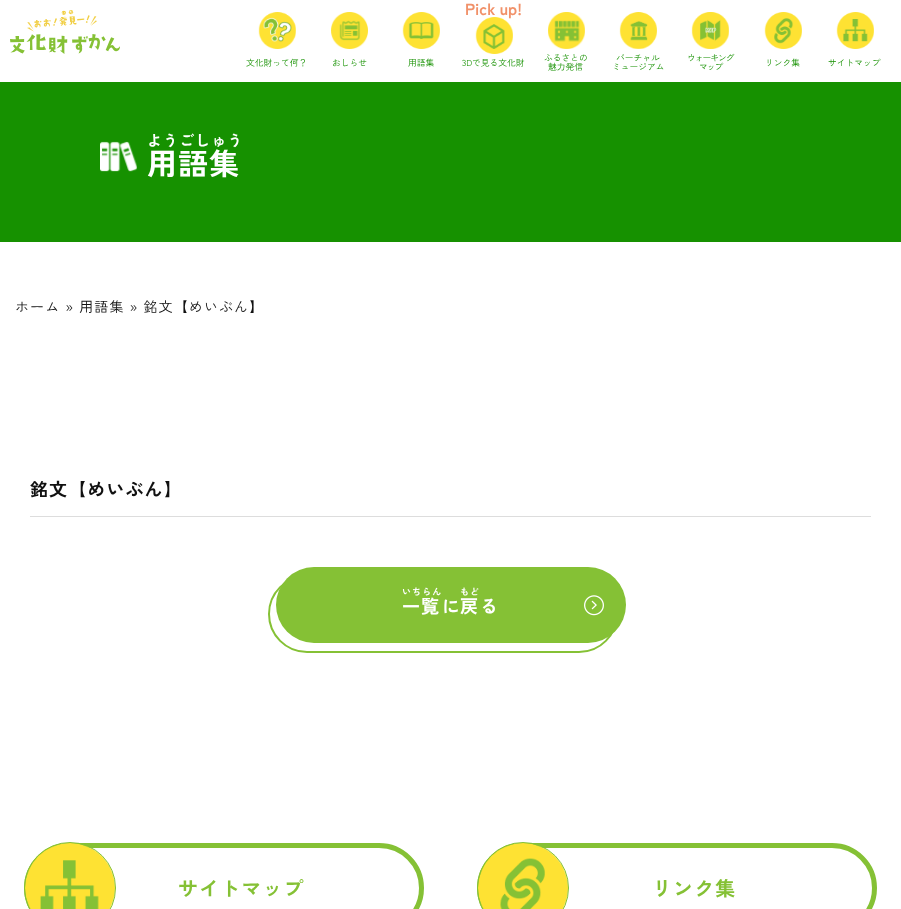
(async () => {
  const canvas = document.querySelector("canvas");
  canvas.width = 901;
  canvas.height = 909;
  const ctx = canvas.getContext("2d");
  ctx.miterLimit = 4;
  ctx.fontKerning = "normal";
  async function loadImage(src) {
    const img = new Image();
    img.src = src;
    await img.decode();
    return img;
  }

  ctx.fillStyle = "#ffffff";
  ctx.fillRect(0, 0, 901, 909);
  ctx.drawImage(await loadImage("img/1.png"), 10, 10, 110, 44);
  ctx.drawImage(await loadImage("img/2.png"), 258, 12, 38, 37);
  ctx.drawImage(await loadImage("img/3.png"), 331, 12, 37, 37);
  ctx.drawImage(await loadImage("img/4.png"), 402, 12, 38, 37);
  ctx.drawImage(await loadImage("img/5.png"), 475, 17, 38, 37);
  ctx.drawImage(await loadImage("img/6.png"), 548, 12, 37, 37);
  ctx.drawImage(await loadImage("img/7.png"), 619, 12, 38, 37);
  ctx.drawImage(await loadImage("img/8.png"), 691, 12, 38, 37);
  ctx.drawImage(await loadImage("img/9.png"), 764, 12, 38, 37);
  ctx.drawImage(await loadImage("img/10.png"), 836, 12, 38, 37);
  ctx.fillStyle = "#169100";
  ctx.fillRect(0, 82, 901, 160);
  ctx.drawImage(await loadImage("img/11.png"), 100, 141, 37, 31);
  ctx.fillStyle = "#dddddd";
  ctx.fillRect(30, 516, 841, 1);
  ctx.beginPath();
  ctx.roundRect(269, 576, 348, 76, 38);
  ctx.strokeStyle = "#85c135";
  ctx.lineWidth = 2;
  ctx.stroke();
  ctx.fillStyle = "#85c135";
  ctx.beginPath();
  ctx.roundRect(276, 567, 350, 76, 38);
  ctx.fill();
  ctx.drawImage(await loadImage("img/12.png"), 584, 595, 20, 21);
  ctx.beginPath();
  ctx.roundRect(26.5, 845.5, 395, 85, 42.5);
  ctx.lineWidth = 5;
  ctx.stroke();
  ctx.drawImage(await loadImage("img/13.png"), 25, 843, 90, 66);
  ctx.beginPath();
  ctx.arc(70, 888, 45.5, 0, Math.PI * 2);
  ctx.lineWidth = 1;
  ctx.stroke();
  ctx.beginPath();
  ctx.roundRect(479.5, 845.5, 395, 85, 42.5);
  ctx.lineWidth = 5;
  ctx.stroke();
  ctx.drawImage(await loadImage("img/14.png"), 478, 843, 90, 66);
  ctx.beginPath();
  ctx.arc(523, 888, 45.5, 0, Math.PI * 2);
  ctx.lineWidth = 1;
  ctx.stroke();
  ctx.font = "8.75px Zen Kaku Gothic New";
  ctx.fillStyle = "#169100";
  for (const [text, x, y] of [
    ["文化財って何？", 246, 66],
    ["おしらせ", 332, 66],
    ["用語集", 408, 66],
  ]) {
    ctx.fillText(text, x, y);
  }
  ctx.font = "bold 16px Zen Kaku Gothic New";
  ctx.fillStyle = "#f19169";
  ctx.fillText("Pick up!", 465, 15);
  ctx.font = "8.75px Zen Kaku Gothic New";
  ctx.fillStyle = "#169100";
  for (const [text, x, y] of [
    ["3Dで見る文化財", 462, 66],
    ["ふるさとの", 544, 61],
    ["魅力発信", 548, 70],
    ["バーチャル", 616, 61],
    ["ミュージアム", 612, 70],
  ]) {
    ctx.fillText(text, x, y);
  }
  ctx.letterSpacing = "-1px";
  ctx.fillText("ウォーキング", 687, 61);
  ctx.fillText("マップ", 699, 70);
  ctx.letterSpacing = "0px";
  ctx.fillText("リンク集", 765, 66);
  ctx.fillText("サイトマップ", 828, 66);
  ctx.letterSpacing = "1.1px";
  ctx.font = "bold 15px Zen Kaku Gothic New";
  ctx.fillStyle = "#ffffff";
  ctx.fillText("ようごしゅう", 147, 146);
  ctx.font = "bold 30px Zen Kaku Gothic New";
  ctx.fillText("用語集", 147, 175);
  ctx.font = "14px Zen Kaku Gothic New";
  ctx.fillStyle = "#111111";
  ctx.fillText("ホーム » 用語集 » 銘文【めいぶん】", 15, 312);
  ctx.font = "bold 18px Zen Kaku Gothic New";
  ctx.fillText("銘文【めいぶん】", 30, 496);
  ctx.font = "bold 9px Zen Kaku Gothic New";
  ctx.fillStyle = "#ffffff";
  ctx.fillText("いちらん", 402, 595);
  ctx.font = "bold 18px Zen Kaku Gothic New";
  ctx.fillText("一覧", 402, 613);
  ctx.fillText("に", 442, 613);
  ctx.font = "bold 9px Zen Kaku Gothic New";
  ctx.fillText("もど", 460, 595);
  ctx.font = "bold 18px Zen Kaku Gothic New";
  ctx.fillText("戻", 460, 613);
  ctx.fillText("る", 480, 613);
  ctx.font = "bold 20px Zen Kaku Gothic New";
  ctx.fillStyle = "#85c135";
  ctx.fillText("サイトマップ", 178, 896);
  ctx.fillText("リンク集", 652, 896);
})();
